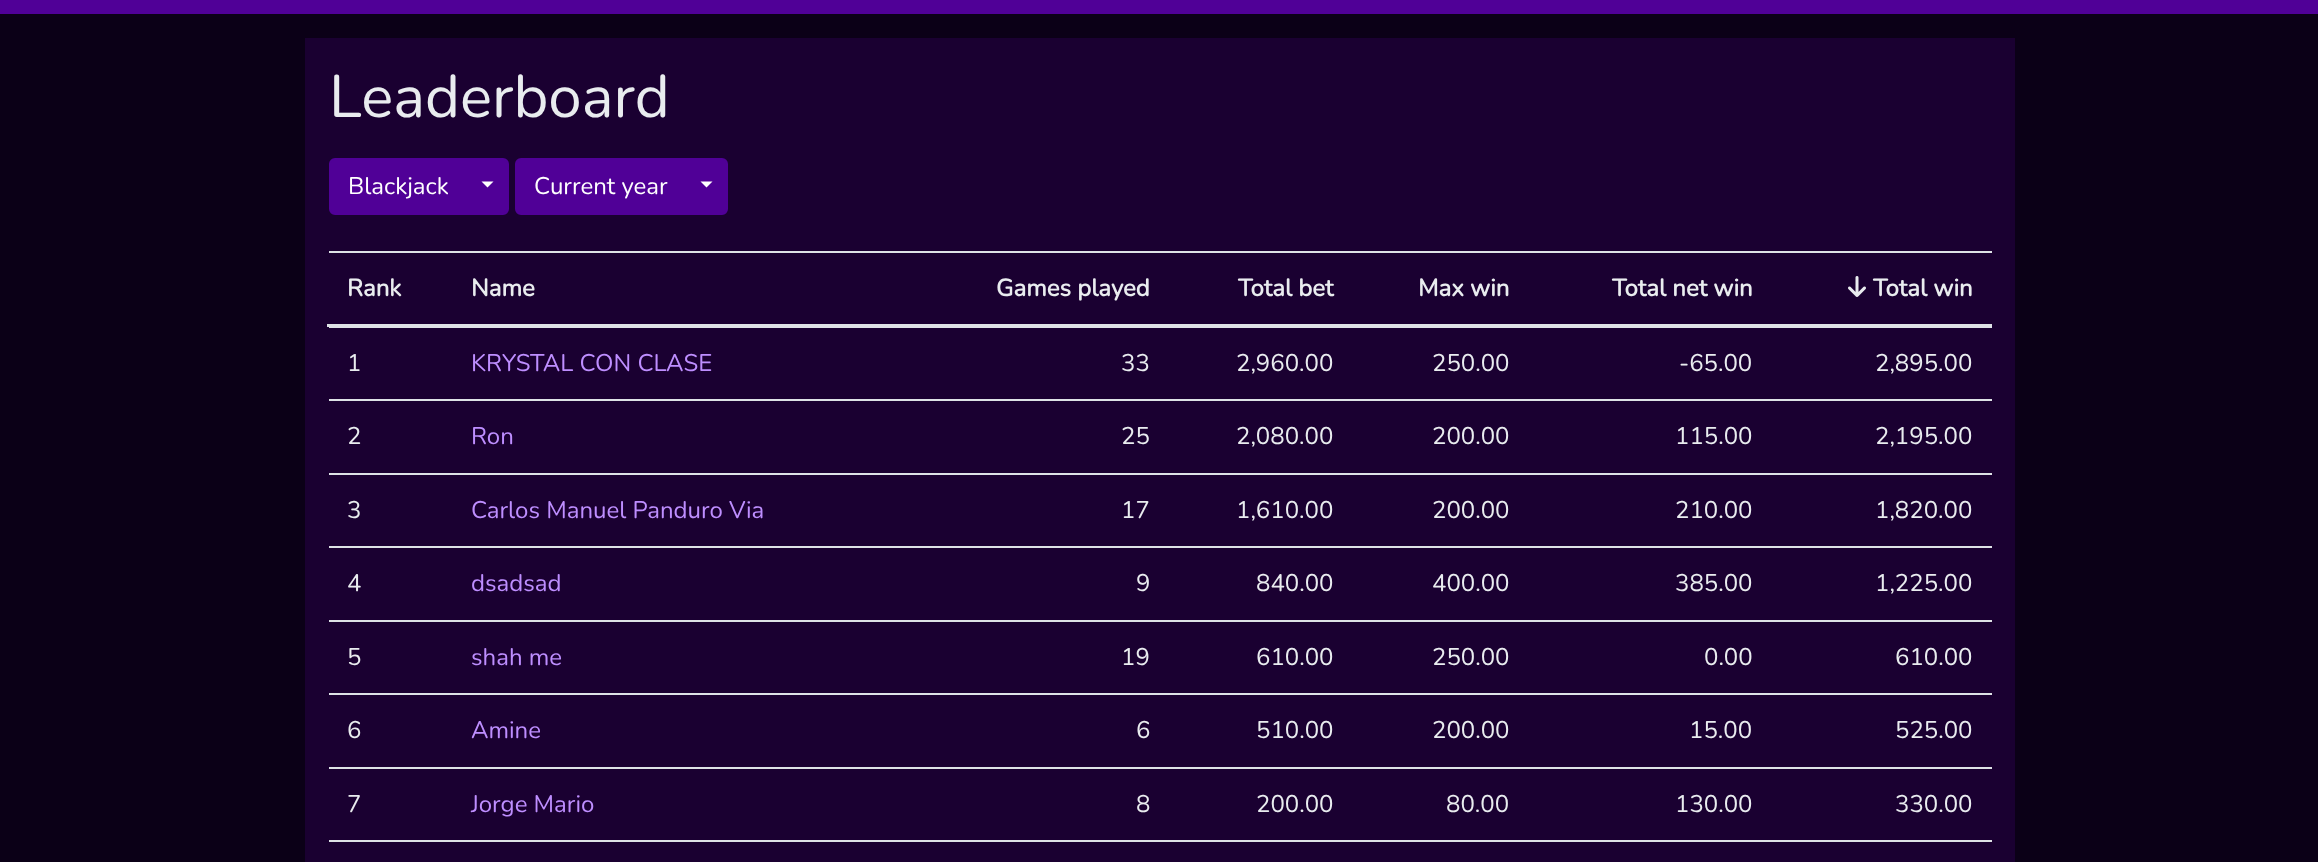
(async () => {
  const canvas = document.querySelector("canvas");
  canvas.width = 2318;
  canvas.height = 862;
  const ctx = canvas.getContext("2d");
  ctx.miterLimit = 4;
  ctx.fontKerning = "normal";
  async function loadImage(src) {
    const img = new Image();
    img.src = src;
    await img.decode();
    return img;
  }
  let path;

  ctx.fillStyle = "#0b0017";
  ctx.fillRect(0, 0, 2318, 862);
  ctx.fillStyle = "#500097";
  ctx.fillRect(0, 0, 2318, 14);
  ctx.fillStyle = "#1a0031";
  ctx.fillRect(305, 38, 1710, 824);
  ctx.fillStyle = "#500097";
  ctx.beginPath();
  ctx.roundRect(330, 159, 137, 55, [5, 0, 0, 5]);
  ctx.fill();
  ctx.strokeStyle = "#500097";
  ctx.lineWidth = 2;
  ctx.stroke();
  ctx.beginPath();
  ctx.roundRect(468, 159, 40, 55, [0, 5, 5, 0]);
  ctx.fill();
  ctx.stroke();
  ctx.fillStyle = "#ffffff";
  path = new Path2D("M481.5 181.5H493.5L487.5 187.5Z");
  ctx.fill(path);
  ctx.fillStyle = "#500097";
  ctx.beginPath();
  ctx.roundRect(516, 159, 170, 55, [5, 0, 0, 5]);
  ctx.fill();
  ctx.stroke();
  ctx.beginPath();
  ctx.roundRect(687, 159, 40, 55, [0, 5, 5, 0]);
  ctx.fill();
  ctx.stroke();
  ctx.fillStyle = "#ffffff";
  path = new Path2D("M700.5 181.5H712.5L706.5 187.5Z");
  ctx.fill(path);
  ctx.fillStyle = "#dee2e6";
  ctx.fillRect(329, 251, 1663, 2);
  ctx.fillRect(327, 324, 1665, 3);
  ctx.drawImage(await loadImage("img/1.png"), 1848, 276, 18, 21);
  for (const [x, y, w, h, color] of [
    [329, 327, 1663, 1, "#dee2e6"],
    [329, 399, 1663, 2, "#dee2e6"],
    [329, 473, 1663, 2, "#dee2e6"],
    [329, 546, 1663, 2, "#dee2e6"],
    [329, 620, 1663, 2, "#dee2e6"],
    [329, 693, 1663, 2, "#dee2e6"],
    [329, 767, 1663, 2, "#dee2e6"],
    [329, 840, 1663, 2, "#dee2e6"],
  ]) {
    ctx.fillStyle = color;
    ctx.fillRect(x, y, w, h);
  }
  ctx.font = "200 60px Nunito";
  ctx.fillStyle = "#e9ecef";
  ctx.fillText("Leaderboard", 329, 117);
  ctx.font = "200 24px Nunito";
  ctx.fillStyle = "#ffffff";
  ctx.fillText("Blackjack", 348, 194);
  ctx.fillText("Current year", 534, 194);
  ctx.font = "bold 24px Nunito";
  ctx.fillStyle = "#e9ecef";
  for (const [text, x, y] of [
    ["Rank", 347, 296],
    ["Name", 471, 296],
    ["Games played", 996, 296],
    ["Total bet", 1238, 296],
    ["Max win", 1418, 296],
    ["Total net win", 1612, 296],
    ["Total win", 1873, 296],
  ]) {
    ctx.fillText(text, x, y);
  }
  ctx.font = "200 24px Nunito";
  ctx.fillText("1", 347, 371);
  ctx.fillStyle = "#be8eff";
  ctx.fillText("KRYSTAL CON CLASE", 471, 371);
  ctx.fillStyle = "#e9ecef";
  for (const [text, x, y] of [
    ["33", 1121, 371],
    ["2,960.00", 1236, 371],
    ["250.00", 1432, 371],
    ["-65.00", 1679, 371],
    ["2,895.00", 1875, 371],
    ["2", 347, 444],
  ]) {
    ctx.fillText(text, x, y);
  }
  ctx.fillStyle = "#be8eff";
  ctx.fillText("Ron", 471, 444);
  ctx.fillStyle = "#e9ecef";
  for (const [text, x, y] of [
    ["25", 1121, 444],
    ["2,080.00", 1236, 444],
    ["200.00", 1432, 444],
    ["115.00", 1675, 444],
    ["2,195.00", 1875, 444],
    ["3", 347, 518],
  ]) {
    ctx.fillText(text, x, y);
  }
  ctx.fillStyle = "#be8eff";
  ctx.fillText("Carlos Manuel Panduro Via", 471, 518);
  ctx.fillStyle = "#e9ecef";
  for (const [text, x, y] of [
    ["17", 1121, 518],
    ["1,610.00", 1236, 518],
    ["200.00", 1432, 518],
    ["210.00", 1675, 518],
    ["1,820.00", 1875, 518],
    ["4", 347, 591],
  ]) {
    ctx.fillText(text, x, y);
  }
  ctx.fillStyle = "#be8eff";
  ctx.fillText("dsadsad", 471, 591);
  ctx.fillStyle = "#e9ecef";
  for (const [text, x, y] of [
    ["9", 1136, 591],
    ["840.00", 1256, 591],
    ["400.00", 1432, 591],
    ["385.00", 1675, 591],
    ["1,225.00", 1875, 591],
    ["5", 347, 665],
  ]) {
    ctx.fillText(text, x, y);
  }
  ctx.fillStyle = "#be8eff";
  ctx.fillText("shah me", 471, 665);
  ctx.fillStyle = "#e9ecef";
  for (const [text, x, y] of [
    ["19", 1121, 665],
    ["610.00", 1256, 665],
    ["250.00", 1432, 665],
    ["0.00", 1704, 665],
    ["610.00", 1895, 665],
    ["6", 347, 738],
  ]) {
    ctx.fillText(text, x, y);
  }
  ctx.fillStyle = "#be8eff";
  ctx.fillText("Amine", 471, 738);
  ctx.fillStyle = "#e9ecef";
  for (const [text, x, y] of [
    ["6", 1136, 738],
    ["510.00", 1256, 738],
    ["200.00", 1432, 738],
    ["15.00", 1689, 738],
    ["525.00", 1895, 738],
    ["7", 347, 812],
  ]) {
    ctx.fillText(text, x, y);
  }
  ctx.fillStyle = "#be8eff";
  ctx.fillText("Jorge Mario", 471, 812);
  ctx.fillStyle = "#e9ecef";
  for (const [text, x, y] of [
    ["8", 1136, 812],
    ["200.00", 1256, 812],
    ["80.00", 1446, 812],
    ["130.00", 1675, 812],
    ["330.00", 1895, 812],
  ]) {
    ctx.fillText(text, x, y);
  }
})();
